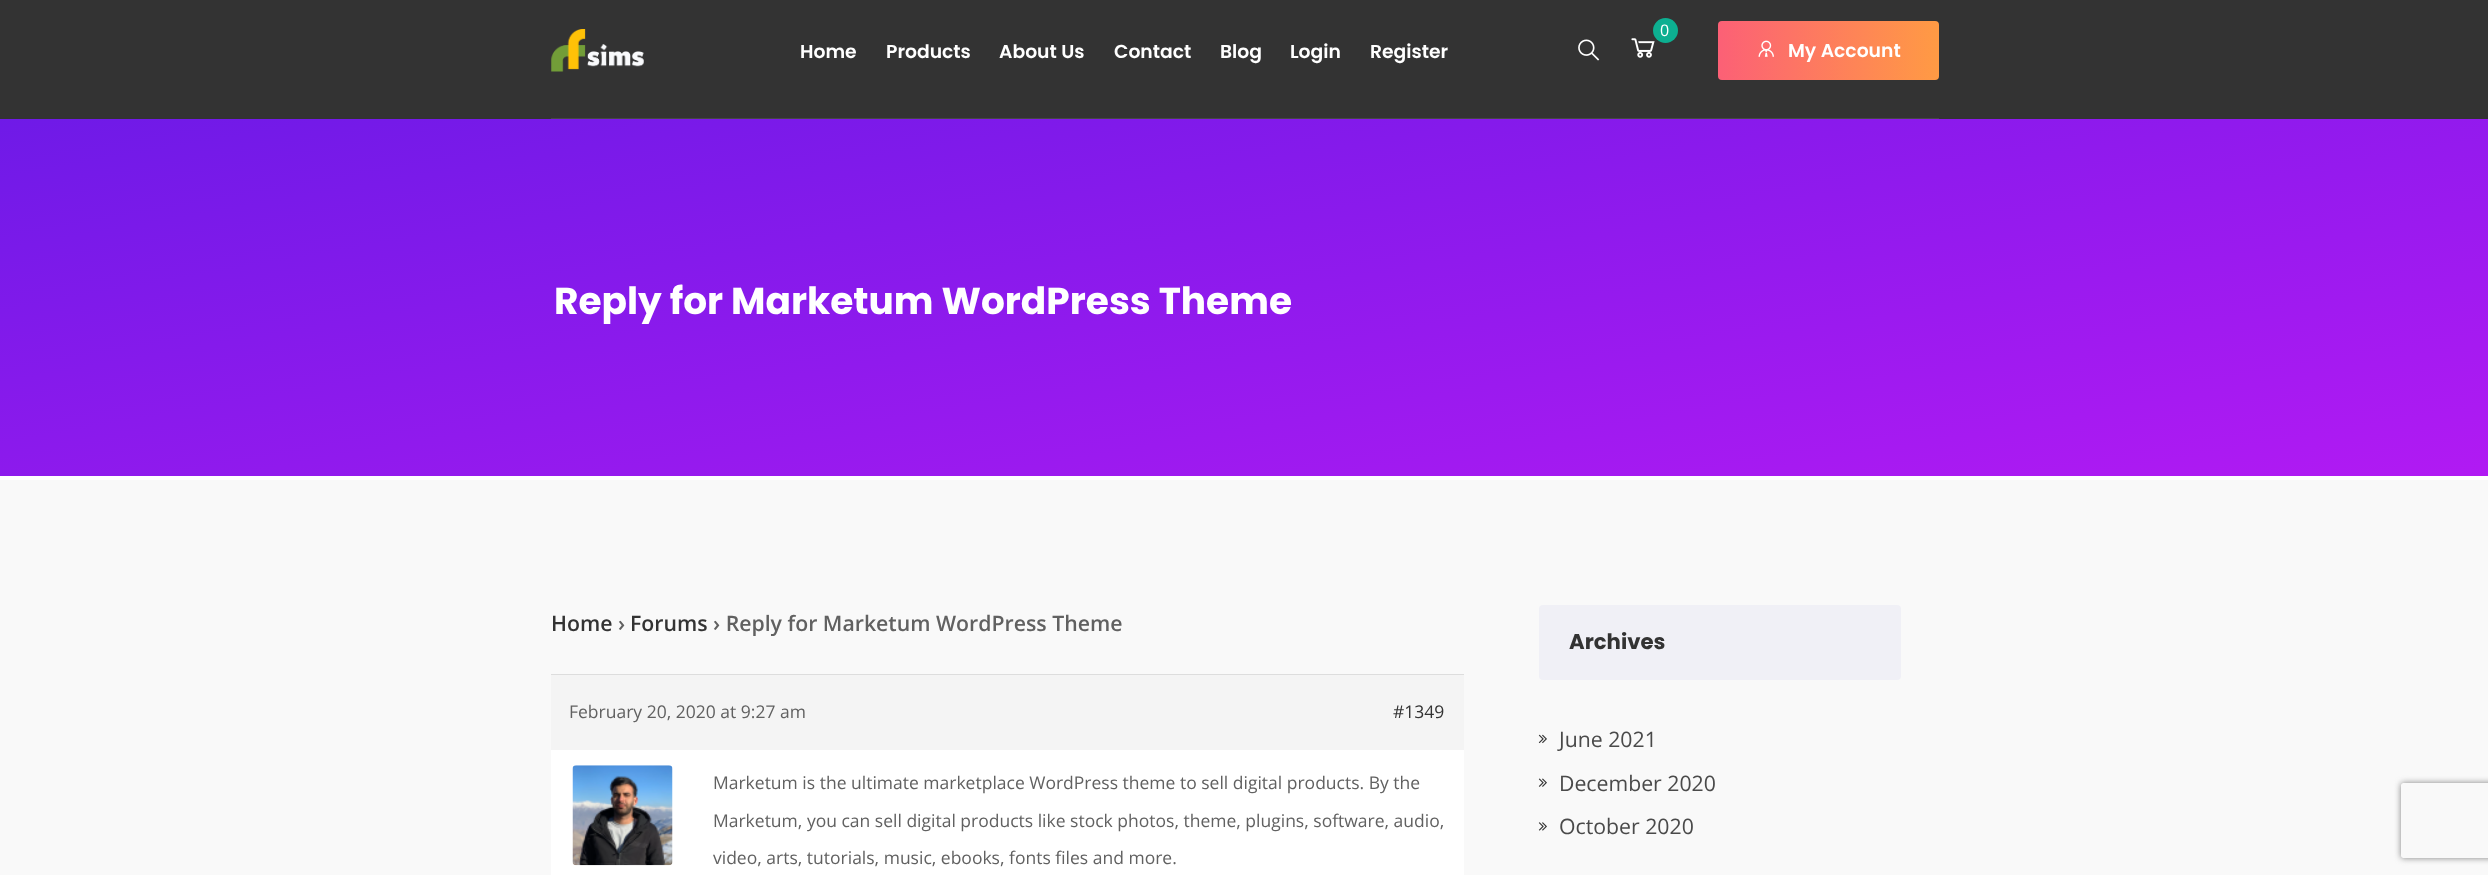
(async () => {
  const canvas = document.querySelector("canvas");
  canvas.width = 2488;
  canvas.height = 875;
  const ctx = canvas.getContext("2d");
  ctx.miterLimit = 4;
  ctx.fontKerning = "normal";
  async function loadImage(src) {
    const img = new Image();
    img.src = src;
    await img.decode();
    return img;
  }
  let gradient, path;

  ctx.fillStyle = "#ffffff";
  ctx.fillRect(0, 0, 2488, 875);
  ctx.fillStyle = "#333333";
  ctx.fillRect(0, 0, 2488, 119);
  ctx.fillStyle = "#474747";
  ctx.fillRect(551, 118, 1388, 1);
  ctx.drawImage(await loadImage("img/1.png"), 551, 29, 93, 43);
  ctx.drawImage(await loadImage("img/2.png"), 1631, 38, 24, 20);
  ctx.fillStyle = "#0daf91";
  ctx.beginPath();
  ctx.arc(1665.5, 30.5, 12.5, 0, Math.PI * 2);
  ctx.fill();
  ctx.drawImage(await loadImage("img/3.png"), 1578, 39, 22, 22);
  gradient = ctx.createLinearGradient(1718, 51, 2381, 51);
  gradient.addColorStop(0, "#fc6076");
  gradient.addColorStop(0.33, "#ff9a44");
  gradient.addColorStop(0.67, "#ef9d43");
  gradient.addColorStop(1, "#e75516");
  ctx.fillStyle = gradient;
  ctx.beginPath();
  ctx.roundRect(1718, 21, 221, 59, 4);
  ctx.fill();
  ctx.drawImage(await loadImage("img/4.png"), 1758, 40, 16, 17);
  gradient = ctx.createLinearGradient(1176, -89, 1312, 684);
  gradient.addColorStop(0, "#6f1ae7");
  gradient.addColorStop(1, "#b11af3");
  ctx.fillStyle = gradient;
  ctx.fillRect(0, 119, 2488, 357);
  for (const [x, y, w, h, color] of [
    [0, 480, 2488, 395, "#f9f9f9"],
    [551, 675, 913, 75, "#f4f4f4"],
    [551, 674, 913, 1, "#dddddd"],
    [551, 750, 913, 125, "#ffffff"],
  ]) {
    ctx.fillStyle = color;
    ctx.fillRect(x, y, w, h);
  }
  ctx.drawImage(await loadImage("img/5.png"), 572, 765, 101, 101);
  ctx.fillStyle = "#f0f0f6";
  ctx.beginPath();
  ctx.roundRect(1539, 605, 362, 75, 4);
  ctx.fill();
  ctx.drawImage(await loadImage("img/6.png"), 1538, 734, 9, 10);
  ctx.drawImage(await loadImage("img/7.png"), 1538, 778, 9, 9);
  ctx.drawImage(await loadImage("img/8.png"), 1538, 822, 9, 9);
  ctx.save();
  path = new Path2D("M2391 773H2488V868H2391ZM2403.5 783H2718.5C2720 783 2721 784 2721 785.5V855.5C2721 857 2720 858 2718.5 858H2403.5C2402 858 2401 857 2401 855.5V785.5C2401 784 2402 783 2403.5 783Z");
  ctx.clip(path, "evenodd");
  ctx.fillStyle = "#808080";
  ctx.filter = "blur(3px)";
  ctx.beginPath();
  ctx.roundRect(2401, 783, 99, 75, 2.5);
  ctx.fill();
  ctx.filter = "none";
  ctx.restore();
  ctx.font = "600 18.75px Poppins";
  ctx.fillStyle = "#ffffff";
  for (const [text, x, y] of [
    ["Home", 800, 58],
    ["Products", 886, 58],
    ["About Us", 999, 58],
    ["Contact", 1114, 58],
    ["Blog", 1220, 58],
    ["Login", 1290, 58],
    ["Register", 1370, 58],
  ]) {
    ctx.fillText(text, x, y);
  }
  ctx.font = "16px Open Sans";
  ctx.fillText("0", 1660, 36);
  ctx.font = "600 18.75px Poppins";
  ctx.fillText("My Account", 1788, 57);
  ctx.font = "bold 37.5px Poppins";
  ctx.fillText("Reply for Marketum WordPress Theme", 554, 314);
  ctx.font = "600 21.25px Open Sans";
  ctx.fillStyle = "#333333";
  ctx.fillText("Home", 551, 631);
  ctx.fillStyle = "#616161";
  ctx.fillText("›", 618, 631);
  ctx.fillStyle = "#333333";
  ctx.fillText("Forums", 630, 631);
  ctx.fillStyle = "#616161";
  ctx.fillText("› Reply for Marketum WordPress Theme", 713, 631);
  ctx.font = "17.5px Open Sans";
  ctx.fillText("February 20, 2020 at 9:27 am", 569, 718);
  ctx.fillStyle = "#333333";
  ctx.fillText("#1349", 1393, 718);
  ctx.fillStyle = "#616161";
  for (const [text, x, y] of [
    ["Marketum is the ultimate marketplace WordPress theme to sell digital products. By the", 713, 789],
    ["Marketum, you can sell digital products like stock photos, theme, plugins, software, audio,", 713, 827],
    ["video, arts, tutorials, music, ebooks, fonts files and more.", 713, 864],
  ]) {
    ctx.fillText(text, x, y);
  }
  ctx.font = "bold 21.25px Poppins";
  ctx.fillStyle = "#333333";
  ctx.fillText("Archives", 1569, 649);
  ctx.font = "21.25px Open Sans";
  ctx.fillStyle = "#4a4a4a";
  for (const [text, x, y] of [
    ["June 2021", 1559, 747],
    ["December 2020", 1559, 791],
    ["October 2020", 1559, 834],
  ]) {
    ctx.fillText(text, x, y);
  }
})();
